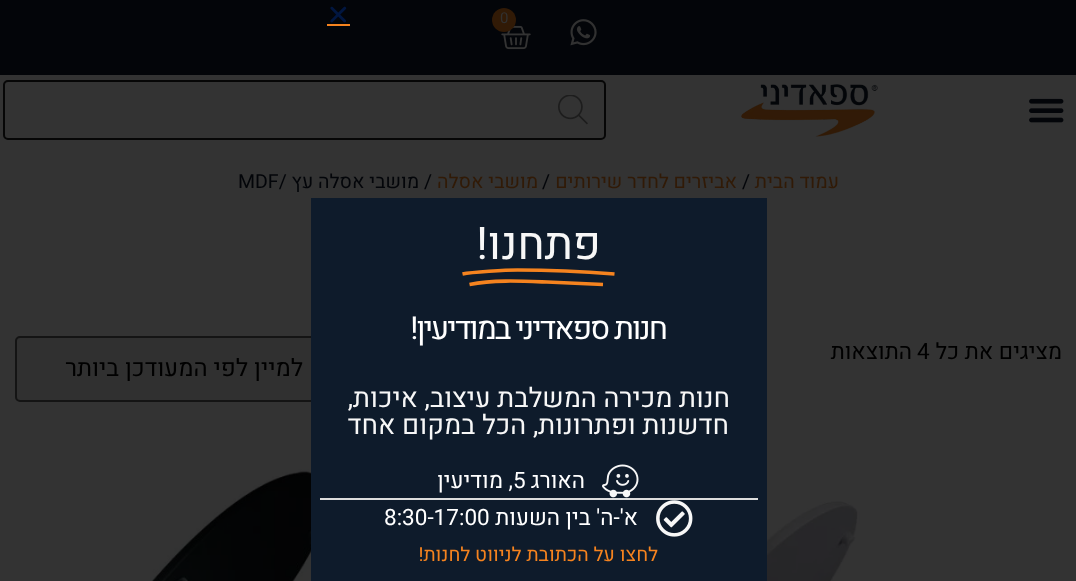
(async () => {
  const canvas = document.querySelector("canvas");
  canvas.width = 1076;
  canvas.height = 581;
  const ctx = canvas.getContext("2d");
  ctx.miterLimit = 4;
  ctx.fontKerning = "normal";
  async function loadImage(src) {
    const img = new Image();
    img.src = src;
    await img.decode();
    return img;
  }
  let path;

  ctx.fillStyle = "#333333";
  ctx.fillRect(0, 0, 1076, 581);
  ctx.fillStyle = "#030509";
  ctx.fillRect(0, 0, 1076, 75);
  ctx.drawImage(await loadImage("img/1.png"), 570, 19, 27, 27);
  ctx.drawImage(await loadImage("img/2.png"), 501, 25, 30, 25);
  ctx.fillStyle = "#311a06";
  ctx.beginPath();
  ctx.arc(504, 20, 12, 0, Math.PI * 2);
  ctx.fill();
  ctx.drawImage(await loadImage("img/3.png"), 1029, 98, 35, 25);
  ctx.drawImage(await loadImage("img/4.png"), 741, 84, 137, 53);
  ctx.beginPath();
  ctx.roundRect(4, 81, 601, 58, 4);
  ctx.strokeStyle = "#060606";
  ctx.lineWidth = 2;
  ctx.stroke();
  ctx.drawImage(await loadImage("img/5.png"), 558, 95, 30, 30);
  ctx.fillStyle = "#303030";
  ctx.beginPath();
  ctx.roundRect(16, 337, 318, 64, 4);
  ctx.fill();
  ctx.strokeStyle = "#141414";
  ctx.stroke();
  ctx.drawImage(await loadImage("img/6.png"), 767, 501, 93, 80);
  ctx.drawImage(await loadImage("img/7.png"), 150, 469, 161, 112);
  ctx.drawImage(await loadImage("img/8.png"), 330, 6, 17, 17);
  ctx.fillStyle = "#f5831f";
  ctx.fillRect(327, 24, 23, 2);
  ctx.fillStyle = "#0e1b2b";
  ctx.fillRect(311, 198, 456, 383);
  path = new Path2D("M462.5 274C472 272 505.5 270 517.5 270C554 270 595.5 272.5 614.5 274");
  ctx.strokeStyle = "#f5831f";
  ctx.lineWidth = 3.7;
  ctx.stroke(path);
  path = new Path2D("M469.5 284.5C494.5 279.5 521.5 281 547 282L603 284.5");
  ctx.stroke(path);
  ctx.drawImage(await loadImage("img/9.png"), 602, 464, 37, 34);
  ctx.fillStyle = "#dddddd";
  ctx.fillRect(320, 498, 438, 2);
  ctx.drawImage(await loadImage("img/10.png"), 656, 500, 37, 37);
  ctx.font = "15px Heebo";
  ctx.fillStyle = "#313131";
  ctx.fillText("0", 500, 23);
  ctx.direction = "rtl";
  ctx.font = "19.5px Heebo";
  ctx.fillStyle = "#311a06";
  ctx.fillText("עמוד הבית", 839, 188);
  ctx.direction = "ltr";
  ctx.fillStyle = "#030509";
  ctx.fillText("/", 742, 188);
  ctx.direction = "rtl";
  ctx.fillStyle = "#311a06";
  ctx.fillText("אביזרים לחדר שירותים", 737, 188);
  ctx.direction = "ltr";
  ctx.fillStyle = "#030509";
  ctx.fillText("/", 542, 188);
  ctx.direction = "rtl";
  ctx.fillStyle = "#311a06";
  ctx.fillText("מושבי אסלה", 538, 188);
  ctx.fillStyle = "#030509";
  ctx.fillText("/ מושבי אסלה עץ /", 432, 188);
  ctx.direction = "ltr";
  ctx.fillText("MDF", 238, 188);
  ctx.direction = "rtl";
  ctx.font = "22.5px Heebo";
  ctx.fillStyle = "#000000";
  ctx.fillText("מציגים את כל", 1062, 359);
  ctx.direction = "ltr";
  ctx.fillText("4", 917, 359);
  ctx.direction = "rtl";
  ctx.fillText("התוצאות", 912, 359);
  ctx.font = "24px Heebo";
  ctx.fillText("למיין לפי המעודכן ביותר", 303, 376);
  ctx.font = "45px Heebo";
  ctx.fillStyle = "#f7f7f7";
  ctx.fillText("פתחנו!", 601, 259);
  ctx.letterSpacing = "-1.95px";
  ctx.font = "31.5px Heebo";
  ctx.fillStyle = "#ffffff";
  ctx.fillText("חנות ספאדיני במודיעין!", 666, 339);
  ctx.letterSpacing = "0px";
  ctx.font = "27px Heebo";
  ctx.fillStyle = "#f7f7f7";
  ctx.fillText("חנות מכירה המשלבת עיצוב, איכות,", 730, 407);
  ctx.fillText("חדשנות ופתרונות, הכל במקום אחד", 729, 434);
  ctx.font = "22.5px Heebo";
  ctx.fillStyle = "#ffffff";
  ctx.fillText("האורג", 585, 488);
  ctx.direction = "ltr";
  ctx.fillText("5", 513, 488);
  ctx.direction = "rtl";
  ctx.fillText(", מודיעין", 513, 488);
  ctx.fillText("א'-ה' בין השעות", 638, 525);
  ctx.direction = "ltr";
  ctx.fillText("8:30-17:00", 384, 525);
  ctx.direction = "rtl";
  ctx.font = "19.5px Heebo";
  ctx.fillStyle = "#f5831f";
  ctx.fillText("לחצו על הכתובת לניווט לחנות!", 658, 561);
})();
